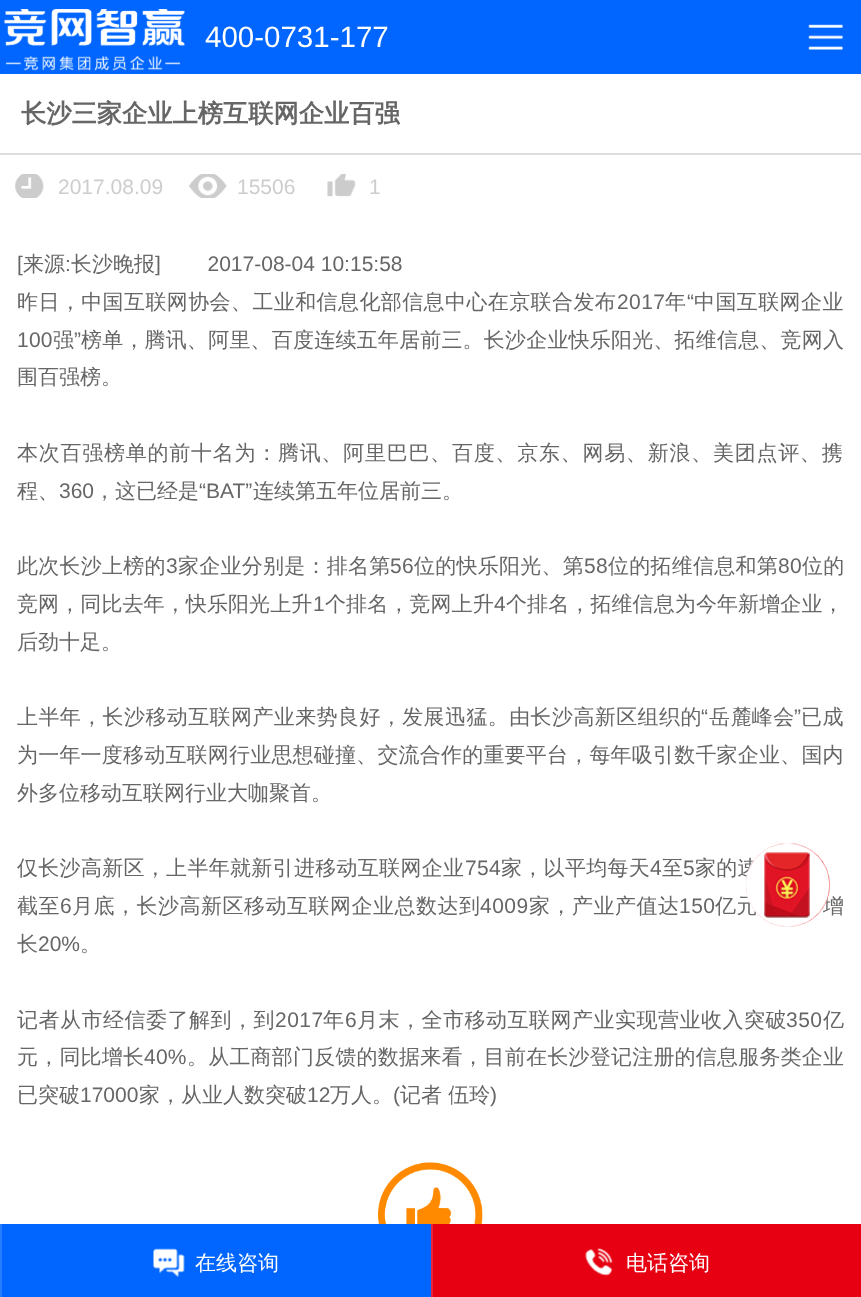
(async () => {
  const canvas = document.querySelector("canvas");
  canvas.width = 861;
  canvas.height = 1297;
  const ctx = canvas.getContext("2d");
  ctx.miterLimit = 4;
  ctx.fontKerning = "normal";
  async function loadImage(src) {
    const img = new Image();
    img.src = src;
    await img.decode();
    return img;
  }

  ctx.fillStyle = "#ffffff";
  ctx.fillRect(0, 0, 861, 1297);
  ctx.fillStyle = "#0066ff";
  ctx.fillRect(0, 0, 861, 74);
  ctx.drawImage(await loadImage("img/1.png"), 4, 9, 181, 62);
  ctx.drawImage(await loadImage("img/2.png"), 808, 24, 35, 26);
  ctx.fillStyle = "#dddddd";
  ctx.fillRect(0, 153, 861, 2);
  ctx.drawImage(await loadImage("img/3.png"), 15, 174, 29, 24);
  ctx.drawImage(await loadImage("img/4.png"), 189, 174, 38, 24);
  ctx.drawImage(await loadImage("img/5.png"), 327, 174, 29, 23);
  ctx.drawImage(await loadImage("img/6.png"), 378, 1162, 105, 62);
  ctx.fillStyle = "#0066ff";
  ctx.fillRect(2, 1224, 429, 73);
  ctx.fillStyle = "#267dff";
  ctx.fillRect(0, 1224, 2, 73);
  ctx.drawImage(await loadImage("img/8.png"), 153, 1248, 32, 29);
  ctx.fillStyle = "#e60012";
  ctx.fillRect(433, 1224, 428, 73);
  ctx.fillStyle = "#ea2636";
  ctx.fillRect(431, 1224, 2, 73);
  ctx.drawImage(await loadImage("img/9.png"), 585, 1248, 28, 28);
  ctx.font = "29.5px Liberation Sans";
  ctx.fillStyle = "#ffffff";
  ctx.fillText("400-0731-177", 205, 47);
  ctx.font = "bold 25.25px WenQuanYi Zen Hei";
  ctx.fillStyle = "#666666";
  ctx.fillText("长沙三家企业上榜互联网企业百强", 21, 122);
  ctx.font = "21px Liberation Sans";
  ctx.fillStyle = "#cdcdcd";
  for (const [text, x, y] of [
    ["2017.08.09", 58, 194],
    ["15506", 237, 194],
    ["1", 369, 194],
  ]) {
    ctx.fillText(text, x, y);
  }
  ctx.fillStyle = "#666666";
  ctx.fillText("[", 17, 271);
  ctx.font = "500 21px WenQuanYi Zen Hei";
  ctx.fillText("来源", 23, 271);
  ctx.font = "21px Liberation Sans";
  ctx.fillText(":", 65, 271);
  ctx.font = "500 21px WenQuanYi Zen Hei";
  ctx.fillText("长沙晚报", 71, 271);
  ctx.font = "21px Liberation Sans";
  ctx.fillText("]        2017-08-04 10:15:58", 155, 271);
  ctx.letterSpacing = "0.4px";
  ctx.font = "500 21px WenQuanYi Zen Hei";
  ctx.fillText("昨日，中国互联网协会、工业和信息化部信息中心在京联合发布", 17, 309);
  ctx.font = "21px Liberation Sans";
  ctx.fillText("2017", 617, 309);
  ctx.font = "500 21px WenQuanYi Zen Hei";
  ctx.fillText("年", 665, 309);
  ctx.font = "21px Liberation Sans";
  ctx.fillText("“", 687, 309);
  ctx.font = "500 21px WenQuanYi Zen Hei";
  ctx.fillText("中国互联网企业", 694, 309);
  ctx.letterSpacing = "0.2px";
  ctx.font = "21px Liberation Sans";
  ctx.fillText("100", 17, 347);
  ctx.font = "500 21px WenQuanYi Zen Hei";
  ctx.fillText("强", 53, 347);
  ctx.font = "21px Liberation Sans";
  ctx.fillText("”", 74, 347);
  ctx.font = "500 21px WenQuanYi Zen Hei";
  ctx.fillText("榜单，腾讯、阿里、百度连续五年居前三。长沙企业快乐阳光、拓维信息、竞网入", 81, 347);
  ctx.letterSpacing = "0px";
  ctx.fillText("围百强榜。", 17, 384);
  ctx.letterSpacing = "0.75px";
  ctx.fillText("本次百强榜单的前十名为：腾讯、阿里巴巴、百度、京东、网易、新浪、美团点评、携", 17, 460);
  ctx.letterSpacing = "0px";
  ctx.fillText("程、", 17, 498);
  ctx.font = "21px Liberation Sans";
  ctx.fillText("360", 59, 498);
  ctx.font = "500 21px WenQuanYi Zen Hei";
  ctx.fillText("，这已经是", 94, 498);
  ctx.font = "21px Liberation Sans";
  ctx.fillText("“BAT”", 199, 498);
  ctx.font = "500 21px WenQuanYi Zen Hei";
  ctx.fillText("连续第五年位居前三。", 253, 498);
  ctx.letterSpacing = "0.25px";
  ctx.fillText("此次长沙上榜的", 17, 573);
  ctx.font = "21px Liberation Sans";
  ctx.fillText("3", 166, 573);
  ctx.font = "500 21px WenQuanYi Zen Hei";
  ctx.fillText("家企业分别是：排名第", 178, 573);
  ctx.font = "21px Liberation Sans";
  ctx.fillText("56", 390, 573);
  ctx.font = "500 21px WenQuanYi Zen Hei";
  ctx.fillText("位的快乐阳光、第", 414, 573);
  ctx.font = "21px Liberation Sans";
  ctx.fillText("58", 584, 573);
  ctx.font = "500 21px WenQuanYi Zen Hei";
  ctx.fillText("位的拓维信息和第", 608, 573);
  ctx.font = "21px Liberation Sans";
  ctx.fillText("80", 778, 573);
  ctx.font = "500 21px WenQuanYi Zen Hei";
  ctx.fillText("位的", 802, 573);
  ctx.letterSpacing = "0.1px";
  ctx.fillText("竞网，同比去年，快乐阳光上升", 17, 611);
  ctx.font = "21px Liberation Sans";
  ctx.fillText("1", 313, 611);
  ctx.font = "500 21px WenQuanYi Zen Hei";
  ctx.fillText("个排名，竞网上升", 325, 611);
  ctx.font = "21px Liberation Sans";
  ctx.fillText("4", 494, 611);
  ctx.font = "500 21px WenQuanYi Zen Hei";
  ctx.fillText("个排名，拓维信息为今年新增企业，", 506, 611);
  ctx.letterSpacing = "0px";
  ctx.fillText("后劲十足。", 17, 649);
  ctx.letterSpacing = "0.4px";
  ctx.fillText("上半年，长沙移动互联网产业来势良好，发展迅猛。由长沙高新区组织的", 17, 724);
  ctx.font = "21px Liberation Sans";
  ctx.fillText("“", 701, 724);
  ctx.font = "500 21px WenQuanYi Zen Hei";
  ctx.fillText("岳麓峰会", 709, 724);
  ctx.font = "21px Liberation Sans";
  ctx.fillText("”", 794, 724);
  ctx.font = "500 21px WenQuanYi Zen Hei";
  ctx.fillText("已成", 801, 724);
  ctx.letterSpacing = "0.2px";
  ctx.fillText("为一年一度移动互联网行业思想碰撞、交流合作的重要平台，每年吸引数千家企业、国内", 17, 762);
  ctx.letterSpacing = "0px";
  ctx.fillText("外多位移动互联网行业大咖聚首。", 17, 800);
  ctx.letterSpacing = "0.3px";
  ctx.fillText("仅长沙高新区，上半年就新引进移动互联网企业", 17, 875);
  ctx.font = "21px Liberation Sans";
  ctx.fillText("754", 465, 875);
  ctx.font = "500 21px WenQuanYi Zen Hei";
  ctx.fillText("家，以平均每天", 501, 875);
  ctx.font = "21px Liberation Sans";
  ctx.fillText("4", 650, 875);
  ctx.font = "500 21px WenQuanYi Zen Hei";
  ctx.fillText("至", 662, 875);
  ctx.font = "21px Liberation Sans";
  ctx.fillText("5", 683, 875);
  ctx.font = "500 21px WenQuanYi Zen Hei";
  ctx.fillText("家的速", 695, 875);
  ctx.letterSpacing = "0.5px";
  ctx.fillText("截至", 17, 913);
  ctx.font = "21px Liberation Sans";
  ctx.fillText("6", 60, 913);
  ctx.font = "500 21px WenQuanYi Zen Hei";
  ctx.fillText("月底，长沙高新区移动互联网企业总数达到", 72, 913);
  ctx.font = "21px Liberation Sans";
  ctx.fillText("4009", 480, 913);
  ctx.font = "500 21px WenQuanYi Zen Hei";
  ctx.fillText("家，产业产值达", 529, 913);
  ctx.font = "21px Liberation Sans";
  ctx.fillText("150", 679, 913);
  ctx.font = "500 21px WenQuanYi Zen Hei";
  ctx.fillText("亿元", 715, 913);
  ctx.fillText("增", 823, 913);
  ctx.letterSpacing = "0px";
  ctx.fillText("长", 17, 951);
  ctx.font = "21px Liberation Sans";
  ctx.fillText("20%", 38, 951);
  ctx.font = "500 21px WenQuanYi Zen Hei";
  ctx.fillText("。", 80, 951);
  ctx.letterSpacing = "0.5px";
  ctx.fillText("记者从市经信委了解到，到", 17, 1027);
  ctx.font = "21px Liberation Sans";
  ctx.fillText("2017", 275, 1027);
  ctx.font = "500 21px WenQuanYi Zen Hei";
  ctx.fillText("年", 323, 1027);
  ctx.font = "21px Liberation Sans";
  ctx.fillText("6", 345, 1027);
  ctx.font = "500 21px WenQuanYi Zen Hei";
  ctx.fillText("月末，全市移动互联网产业实现营业收入突破", 357, 1027);
  ctx.font = "21px Liberation Sans";
  ctx.fillText("350", 786, 1027);
  ctx.font = "500 21px WenQuanYi Zen Hei";
  ctx.fillText("亿", 823, 1027);
  ctx.letterSpacing = "0.2px";
  ctx.fillText("元，同比增长", 17, 1064);
  ctx.font = "21px Liberation Sans";
  ctx.fillText("40%", 144, 1064);
  ctx.font = "500 21px WenQuanYi Zen Hei";
  ctx.fillText("。从工商部门反馈的数据来看，目前在长沙登记注册的信息服务类企业", 187, 1064);
  ctx.letterSpacing = "0px";
  ctx.fillText("已突破", 17, 1102);
  ctx.font = "21px Liberation Sans";
  ctx.fillText("17000", 80, 1102);
  ctx.font = "500 21px WenQuanYi Zen Hei";
  ctx.fillText("家，从业人数突破", 139, 1102);
  ctx.font = "21px Liberation Sans";
  ctx.fillText("12", 307, 1102);
  ctx.font = "500 21px WenQuanYi Zen Hei";
  ctx.fillText("万人。", 330, 1102);
  ctx.font = "21px Liberation Sans";
  ctx.fillText("(", 393, 1102);
  ctx.font = "500 21px WenQuanYi Zen Hei";
  ctx.fillText("记者 伍玲", 400, 1102);
  ctx.font = "21px Liberation Sans";
  ctx.fillText(")", 490, 1102);
  ctx.fillStyle = "#e42628";
  ctx.beginPath();
  ctx.arc(788, 885, 42, 0, Math.PI * 2);
  ctx.fill();
  ctx.drawImage(await loadImage("img/7.png"), 745, 843, 85, 84);
  ctx.font = "500 21px WenQuanYi Zen Hei";
  ctx.fillStyle = "#ffffff";
  ctx.fillText("在线咨询", 195, 1270);
  ctx.fillText("电话咨询", 626, 1270);
})();
